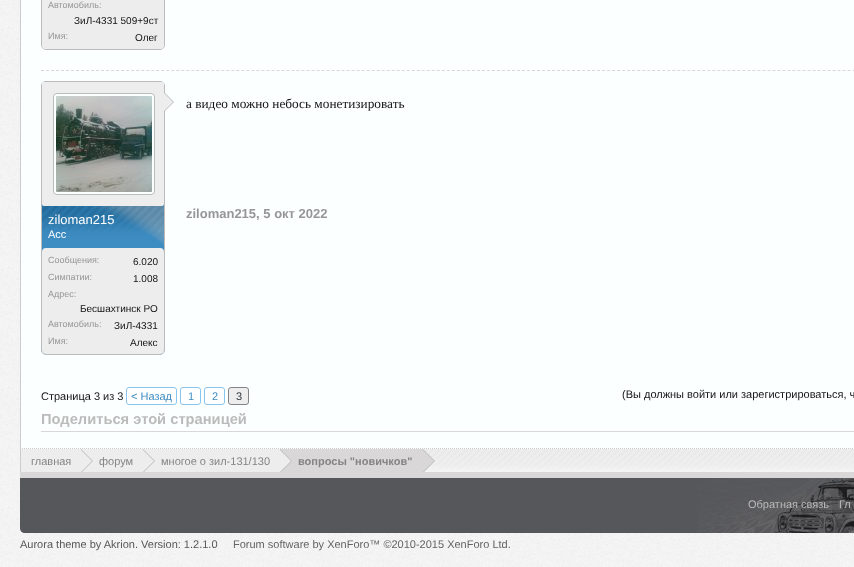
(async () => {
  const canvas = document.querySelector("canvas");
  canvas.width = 854;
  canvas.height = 567;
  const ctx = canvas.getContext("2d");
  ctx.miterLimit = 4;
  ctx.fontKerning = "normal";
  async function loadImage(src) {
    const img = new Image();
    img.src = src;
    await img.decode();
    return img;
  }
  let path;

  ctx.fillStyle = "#ffffff";
  ctx.fillRect(0, 0, 854, 567);
  ctx.drawImage(await loadImage("img/1.png"), 0, 0, 854, 567);
  ctx.fillStyle = "#fcffff";
  ctx.fillRect(21, 0, 833, 449);
  path = new Path2D("M20 448.5H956");
  ctx.strokeStyle = "#cccccc";
  ctx.setLineDash([1, 1]);
  ctx.stroke(path);
  ctx.fillStyle = "#cccccc";
  ctx.fillRect(20, 0, 1, 472);
  ctx.beginPath();
  ctx.roundRect(41.5, -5.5, 123, 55, 4.5);
  ctx.strokeStyle = "#bbbbbb";
  ctx.setLineDash([]);
  ctx.stroke();
  ctx.fillStyle = "#ededed";
  ctx.beginPath();
  ctx.roundRect(42, -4, 122, 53, 4);
  ctx.fill();
  path = new Path2D("M41 70.5H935");
  ctx.strokeStyle = "#d9d7d7";
  ctx.setLineDash([3, 2.01]);
  ctx.stroke(path);
  ctx.fillStyle = "#3e8dc2";
  ctx.beginPath();
  ctx.roundRect(41.5, 81.5, 123, 273, 4.5);
  ctx.fill();
  ctx.strokeStyle = "#bbbbbb";
  ctx.setLineDash([]);
  ctx.stroke();
  ctx.fillStyle = "#ededed";
  ctx.beginPath();
  ctx.roundRect(42.5, 82.5, 121, 123, 1.5);
  ctx.fill();
  ctx.strokeStyle = "#ededed";
  ctx.stroke();
  ctx.fillStyle = "#fcffff";
  ctx.beginPath();
  ctx.roundRect(53.5, 93.5, 101, 101, 3.5);
  ctx.fill();
  ctx.strokeStyle = "#bbbbbb";
  ctx.stroke();
  ctx.drawImage(await loadImage("img/2.png"), 56, 96, 96, 96);
  ctx.fillStyle = "#bbbbbb";
  path = new Path2D("M164 112V92L174 102Z");
  ctx.fill(path);
  ctx.fillStyle = "#ededed";
  path = new Path2D("M163 112V92L173 102Z");
  ctx.fill(path);
  ctx.drawImage(await loadImage("img/3.png"), 42, 206, 122, 39);
  ctx.beginPath();
  ctx.roundRect(42, 248, 122, 106, 4);
  ctx.fill();
  ctx.fillStyle = "#ffffff";
  ctx.beginPath();
  ctx.roundRect(126.5, 387.5, 50, 17, 2.5);
  ctx.fill();
  ctx.strokeStyle = "#89c5ed";
  ctx.stroke();
  ctx.beginPath();
  ctx.roundRect(180.5, 387.5, 20, 17, 2.5);
  ctx.fill();
  ctx.stroke();
  ctx.beginPath();
  ctx.roundRect(204.5, 387.5, 20, 17, 2.5);
  ctx.fill();
  ctx.stroke();
  ctx.fillStyle = "#ededed";
  ctx.beginPath();
  ctx.roundRect(228.5, 387.5, 20, 17, 2.5);
  ctx.fill();
  ctx.strokeStyle = "#848484";
  ctx.stroke();
  ctx.fillStyle = "#d9d7d7";
  ctx.fillRect(41, 431, 813, 1);
  ctx.drawImage(await loadImage("img/4.png"), 423, 449, 431, 23);
  ctx.fillStyle = "#ededed";
  ctx.fillRect(21, 449, 259, 23);
  ctx.fillStyle = "#bbbbbb";
  path = new Path2D("M81 473V449L93 461Z");
  ctx.fill(path);
  ctx.fillStyle = "#ededed";
  path = new Path2D("M80 473V449L92 461Z");
  ctx.fill(path);
  ctx.fillStyle = "#bbbbbb";
  path = new Path2D("M143 473V449L155 461Z");
  ctx.fill(path);
  ctx.fillStyle = "#ededed";
  path = new Path2D("M142 473V449L154 461Z");
  ctx.fill(path);
  ctx.fillStyle = "#d9d7d7";
  ctx.fillRect(280, 449, 143, 23);
  ctx.fillStyle = "#bbbbbb";
  path = new Path2D("M280 473V449L292 461Z");
  ctx.fill(path);
  ctx.fillStyle = "#ededed";
  path = new Path2D("M279 473V449L291 461Z");
  ctx.fill(path);
  ctx.fillStyle = "#bbbbbb";
  path = new Path2D("M423 473V449L435 461Z");
  ctx.fill(path);
  ctx.fillStyle = "#d9d7d7";
  path = new Path2D("M422 473V449L434 461Z");
  ctx.fill(path);
  ctx.fillStyle = "#56575a";
  path = new Path2D("M20 472H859V528C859 531 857 533 854 533H25C22 533 20 531 20 528Z");
  ctx.fill(path);
  ctx.drawImage(await loadImage("img/5.png"), 698, 478, 156, 55);
  ctx.fillStyle = "#d9d7d7";
  ctx.fillRect(20, 472, 834, 6);
  ctx.font = "9px Liberation Sans";
  ctx.fillStyle = "#969696";
  ctx.fillText("Автомобиль:", 48, 8);
  ctx.font = "10px Liberation Sans";
  ctx.fillStyle = "#141414";
  ctx.fillText("ЗиЛ-4331 509+9ст", 74, 24);
  ctx.font = "9px Liberation Sans";
  ctx.fillStyle = "#969696";
  ctx.fillText("Имя:", 48, 39);
  ctx.font = "10px Liberation Sans";
  ctx.fillStyle = "#141414";
  ctx.fillText("Олег", 135, 41);
  ctx.font = "13.3px Liberation Serif";
  ctx.fillText("а видео можно небось монетизировать", 186, 108);
  ctx.font = "bold 13px Liberation Sans";
  ctx.fillStyle = "#969696";
  ctx.fillText("ziloman215, 5 окт 2022", 186, 218);
  ctx.font = "13px Liberation Sans";
  ctx.fillStyle = "#ffffff";
  ctx.fillText("ziloman215", 48, 224);
  ctx.font = "11px Liberation Sans";
  ctx.fillText("Асс", 48, 238);
  ctx.font = "9px Liberation Sans";
  ctx.fillStyle = "#969696";
  ctx.fillText("Сообщения:", 48, 263);
  ctx.font = "10px Liberation Sans";
  ctx.fillStyle = "#141414";
  ctx.fillText("6.020", 133, 265);
  ctx.font = "9px Liberation Sans";
  ctx.fillStyle = "#969696";
  ctx.fillText("Симпатии:", 48, 280);
  ctx.font = "10px Liberation Sans";
  ctx.fillStyle = "#141414";
  ctx.fillText("1.008", 133, 282);
  ctx.font = "9px Liberation Sans";
  ctx.fillStyle = "#969696";
  ctx.fillText("Адрес:", 48, 297);
  ctx.font = "10px Liberation Sans";
  ctx.fillStyle = "#141414";
  ctx.fillText("Бесшахтинск РО", 80, 312);
  ctx.font = "9px Liberation Sans";
  ctx.fillStyle = "#969696";
  ctx.fillText("Автомобиль:", 48, 327);
  ctx.font = "10px Liberation Sans";
  ctx.fillStyle = "#141414";
  ctx.fillText("ЗиЛ-4331", 114, 329);
  ctx.font = "9px Liberation Sans";
  ctx.fillStyle = "#969696";
  ctx.fillText("Имя:", 48, 344);
  ctx.font = "10px Liberation Sans";
  ctx.fillStyle = "#141414";
  ctx.fillText("Алекс", 130, 346);
  ctx.font = "11px Liberation Sans";
  ctx.fillText("Страница 3 из 3", 41, 400);
  ctx.fillStyle = "#3e8dc2";
  for (const [text, x, y] of [
    ["< Назад", 131, 400],
    ["1", 188, 400],
    ["2", 212, 400],
  ]) {
    ctx.fillText(text, x, y);
  }
  ctx.fillStyle = "#313639";
  ctx.fillText("3", 236, 400);
  ctx.fillStyle = "#141414";
  ctx.fillText("(Вы должны войти или зарегистрироваться, ч", 622, 398);
  ctx.font = "bold 14.7px Liberation Sans";
  ctx.fillStyle = "#bbbbbb";
  ctx.fillText("Поделиться этой страницей", 41, 424);
  ctx.font = "11px Liberation Sans";
  ctx.fillStyle = "#848484";
  for (const [text, x, y] of [
    ["главная", 31, 465],
    ["форум", 99, 465],
    ["многое о зил-131/130", 161, 465],
  ]) {
    ctx.fillText(text, x, y);
  }
  ctx.font = "bold 11px Liberation Sans";
  ctx.fillText("вопросы \"новичков\"", 298, 465);
  ctx.font = "11px Liberation Sans";
  ctx.fillStyle = "#bbbbbb";
  ctx.fillText("Обратная связь", 748, 508);
  ctx.fillText("Гл", 839, 508);
  ctx.fillStyle = "#56575a";
  ctx.fillText("Aurora theme by Akrion. Version: 1.2.1.0", 20, 548);
  ctx.fillStyle = "#646464";
  ctx.fillText("Forum software by XenForo™ ©2010-2015 XenForo Ltd.", 233, 548);
})();
